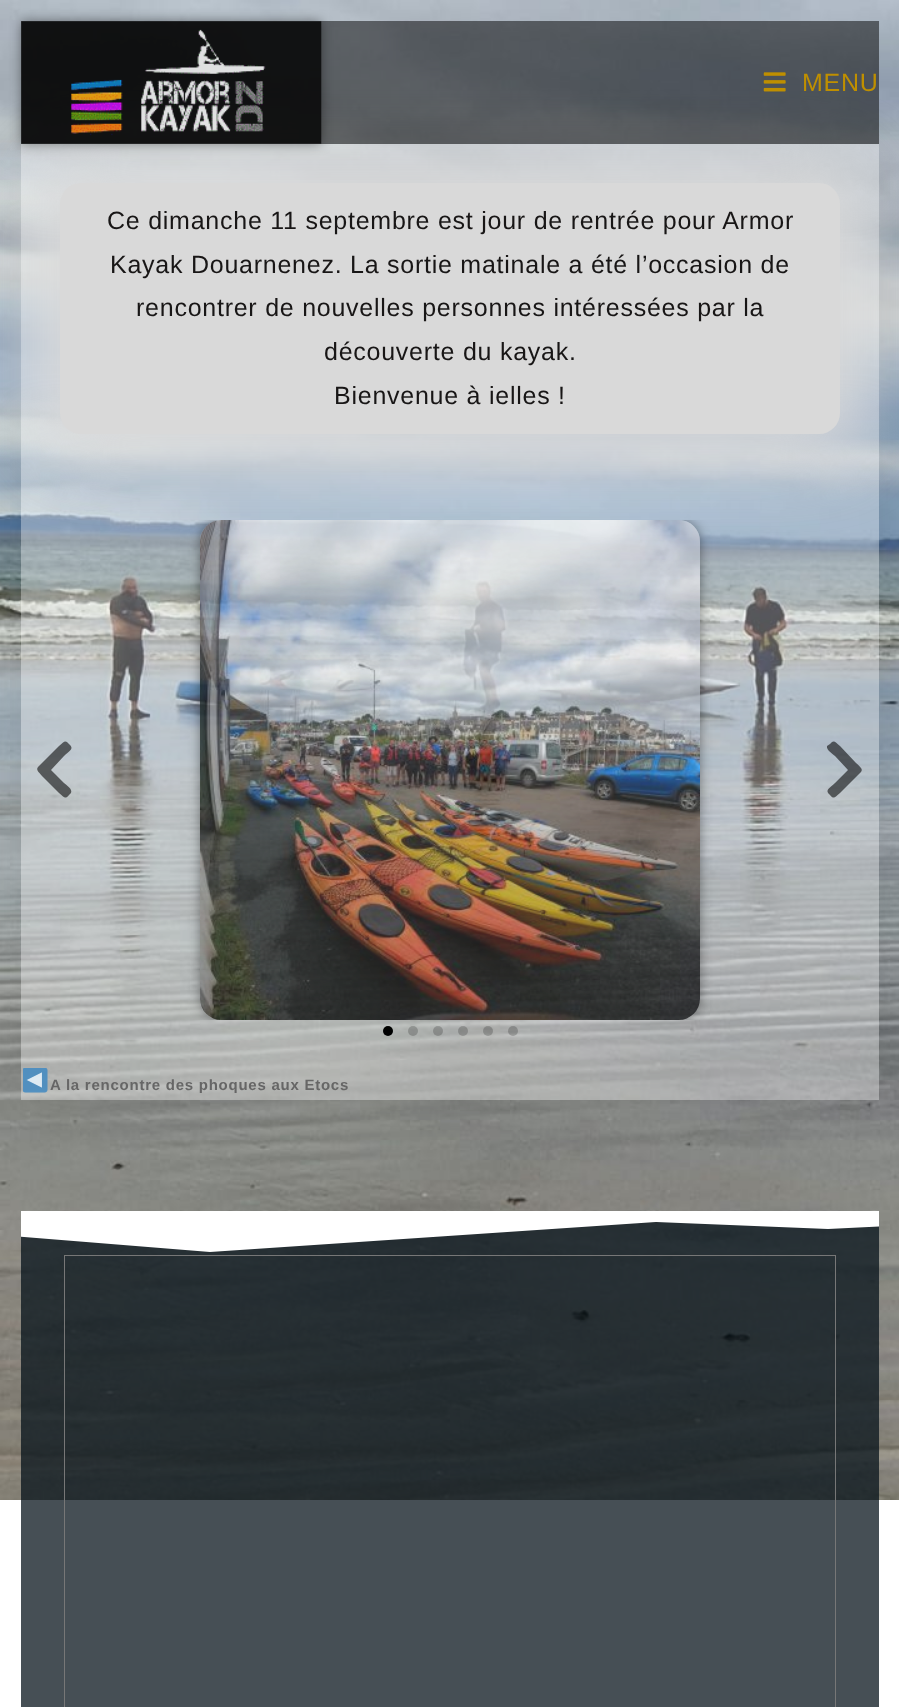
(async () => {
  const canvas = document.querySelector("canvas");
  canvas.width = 899;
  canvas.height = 1707;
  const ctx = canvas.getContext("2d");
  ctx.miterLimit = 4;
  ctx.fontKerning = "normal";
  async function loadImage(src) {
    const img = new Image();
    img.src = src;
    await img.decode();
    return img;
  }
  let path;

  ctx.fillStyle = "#ffffff";
  ctx.fillRect(0, 0, 899, 1707);
  ctx.drawImage(await loadImage("img/1.png"), 0, 0, 899, 1500);
  ctx.save();
  path = new Path2D("M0 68H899V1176H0ZM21 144H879V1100H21Z");
  ctx.clip(path, "evenodd");
  ctx.fillStyle = "rgba(0, 0, 0, 0.1)";
  ctx.filter = "blur(25px)";
  ctx.beginPath();
  ctx.rect(21, 144, 858, 956);
  ctx.fill();
  ctx.filter = "none";
  ctx.restore();
  ctx.fillStyle = "rgba(255, 255, 255, 0.33)";
  ctx.fillRect(21, 144, 858, 956);
  ctx.fillStyle = "#d9d9d9";
  ctx.filter = "blur(33px)";
  ctx.beginPath();
  ctx.roundRect(40, 163, 820, 291, 41);
  ctx.fill();
  ctx.filter = "none";
  ctx.fillStyle = "rgba(0, 0, 0, 0.5)";
  ctx.fillRect(21, 21, 858, 123);
  ctx.save();
  path = new Path2D("M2 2H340V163H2ZM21 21H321V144H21Z");
  ctx.clip(path, "evenodd");
  ctx.fillStyle = "rgba(0, 0, 0, 0.41)";
  ctx.filter = "blur(6px)";
  ctx.beginPath();
  ctx.rect(21, 21, 300, 123);
  ctx.fill();
  ctx.filter = "none";
  ctx.restore();
  ctx.drawImage(await loadImage("img/2.png"), 21, 21, 301, 123);
  ctx.drawImage(await loadImage("img/3.png"), 763, 72, 23, 20);
  ctx.fillStyle = "#d9d9d9";
  ctx.beginPath();
  ctx.roundRect(60, 183, 780, 251, 21);
  ctx.fill();
  ctx.fillStyle = "rgba(0, 0, 0, 0.56)";
  path = new Path2D("M38 767L59 746C64 742 65 739 69 744C75 749 69 751 64 756L51 770L64 783C66 785 73 789 71 793L69 795C65 800 64 797 59 793L42 776C41 774 35 770 38 767Z");
  ctx.fill(path);
  ctx.save();
  ctx.beginPath();
  ctx.rect(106, 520, 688, 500);
  ctx.clip();
  path = new Path2D("M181 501H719V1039H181ZM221 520H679C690.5 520 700 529.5 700 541V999C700 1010.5 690.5 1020 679 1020H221C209.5 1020 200 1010.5 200 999V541C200 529.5 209.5 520 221 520Z");
  ctx.clip(path, "evenodd");
  ctx.fillStyle = "rgba(0, 0, 0, 0.41)";
  ctx.filter = "blur(6px)";
  ctx.beginPath();
  ctx.roundRect(200, 520, 500, 500, 21);
  ctx.fill();
  ctx.filter = "none";
  ctx.restore();
  ctx.drawImage(await loadImage("img/4.png"), 200, 520, 500, 500);
  path = new Path2D("M861 772L840 793C835 797 834 800 830 795C824 790 830 788 835 783L848 770L835 756C833 754 826 750 827 746L830 744C834 739 835 742 840 746L856 763C858 765 864 769 861 772Z");
  ctx.fill(path);
  ctx.fillStyle = "#000000";
  ctx.beginPath();
  ctx.arc(388, 1031, 5, 0, Math.PI * 2);
  ctx.fill();
  ctx.fillStyle = "rgba(0, 0, 0, 0.2)";
  ctx.beginPath();
  ctx.arc(413, 1031, 5, 0, Math.PI * 2);
  ctx.fill();
  ctx.beginPath();
  ctx.arc(438, 1031, 5, 0, Math.PI * 2);
  ctx.fill();
  ctx.beginPath();
  ctx.arc(463, 1031, 5, 0, Math.PI * 2);
  ctx.fill();
  ctx.beginPath();
  ctx.arc(488, 1031, 5, 0, Math.PI * 2);
  ctx.fill();
  ctx.beginPath();
  ctx.arc(513, 1031, 5, 0, Math.PI * 2);
  ctx.fill();
  ctx.drawImage(await loadImage("img/5.png"), 23, 1068, 25, 25);
  ctx.fillStyle = "rgba(6, 17, 25, 0.74)";
  ctx.fillRect(21, 1222, 858, 485);
  ctx.save();
  ctx.beginPath();
  ctx.rect(21, 1211, 858, 42);
  ctx.clip();
  ctx.fillStyle = "#ffffff";
  path = new Path2D("M828 1229L656 1222L210 1252L-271 1213V1211H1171V1213");
  ctx.fill(path);
  ctx.restore();
  ctx.strokeStyle = "#777777";
  ctx.strokeRect(64.5, 1255.5, 771, 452);
  ctx.letterSpacing = "0.75px";
  ctx.font = "25px Liberation Sans";
  ctx.fillStyle = "#bf8f00";
  ctx.fillText("MENU", 802, 91);
  ctx.fillStyle = "#181616";
  for (const [text, x, y] of [
    ["Ce dimanche 11 septembre est jour de rentrée pour Armor", 107, 229],
    ["Kayak Douarnenez. La sortie matinale a été l’occasion de", 110, 273],
    ["rencontrer de nouvelles personnes intéressées par la", 136, 316],
    ["découverte du kayak.", 324, 360],
    ["Bienvenue à ielles !", 334, 404],
  ]) {
    ctx.fillText(text, x, y);
  }
  ctx.font = "bold 15px Liberation Sans";
  ctx.fillStyle = "#666666";
  ctx.fillText("A la rencontre des phoques aux Etocs", 50, 1090);
})();
